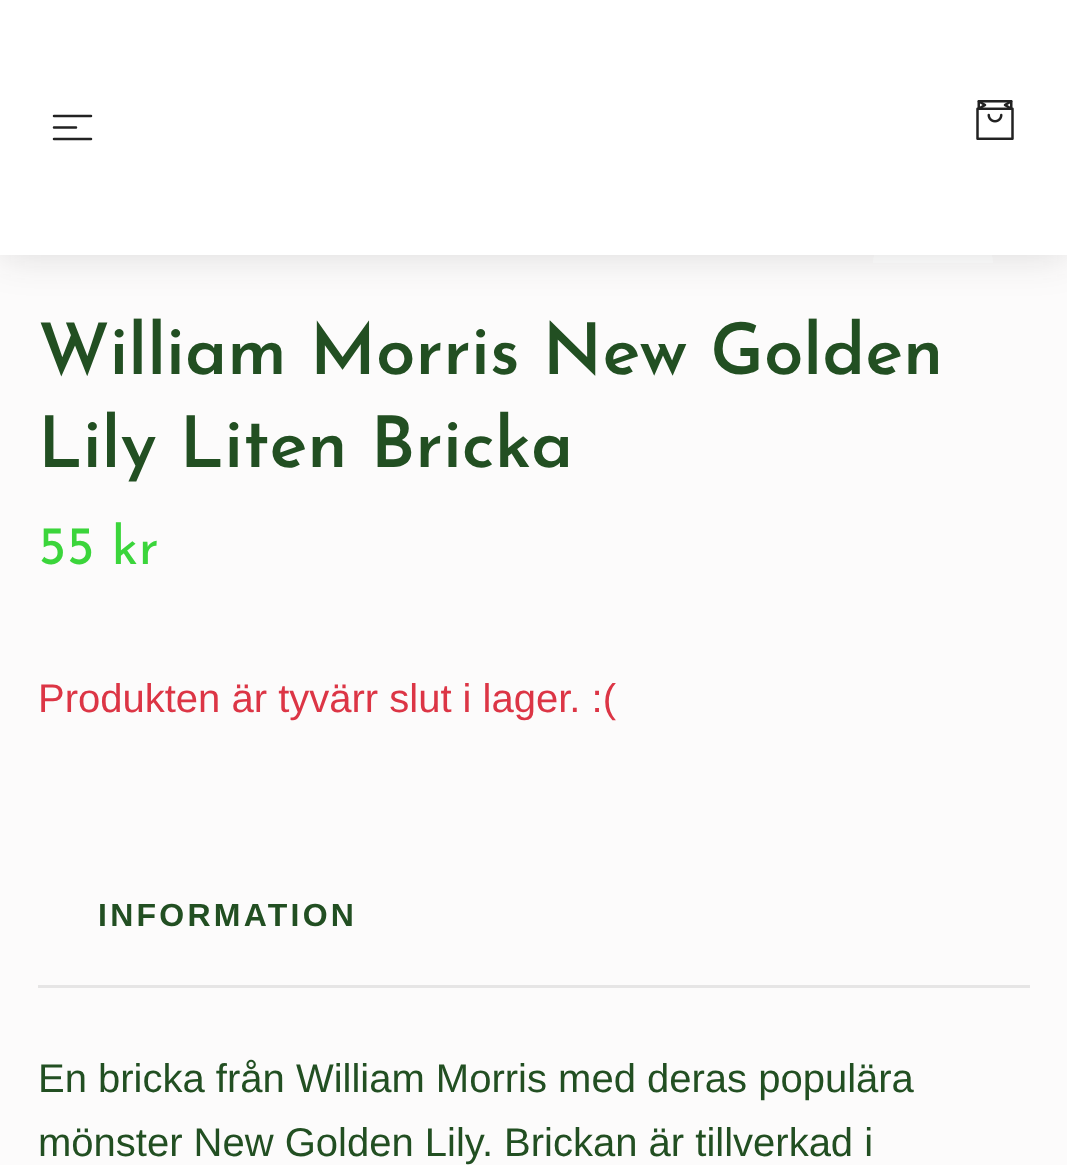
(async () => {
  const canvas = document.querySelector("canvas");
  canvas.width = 1067;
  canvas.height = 1165;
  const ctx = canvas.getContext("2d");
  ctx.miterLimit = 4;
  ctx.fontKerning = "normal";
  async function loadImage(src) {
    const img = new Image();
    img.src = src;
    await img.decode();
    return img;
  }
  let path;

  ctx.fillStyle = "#fcfbfb";
  ctx.fillRect(0, 0, 1067, 1165);
  ctx.fillStyle = "#ffffff";
  ctx.beginPath();
  ctx.roundRect(873, 235, 120, 28, [60, 60, 0, 0]);
  ctx.fill();
  ctx.fillStyle = "rgba(34, 34, 34, 0.15)";
  ctx.filter = "blur(20px)";
  ctx.beginPath();
  ctx.rect(0, 0, 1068, 255);
  ctx.fill();
  ctx.filter = "none";
  ctx.fillStyle = "#ffffff";
  ctx.fillRect(0, 0, 1067, 255);
  path = new Path2D("M54 116H91M54 127.5H76M54 139H91");
  ctx.strokeStyle = "#222222";
  ctx.lineWidth = 2.5;
  ctx.lineCap = "round";
  ctx.lineJoin = "round";
  ctx.stroke(path);
  ctx.drawImage(await loadImage("img/1.png"), 976, 100, 38, 40);
  ctx.fillStyle = "#e6e5e5";
  ctx.fillRect(38, 985, 992, 3);
  ctx.font = "600 71px Josefin Sans";
  ctx.fillStyle = "#224f22";
  ctx.fillText("William Morris New Golden", 38, 374);
  ctx.fillText("Lily Liten Bricka", 38, 467);
  ctx.font = "54px Josefin Sans";
  ctx.fillStyle = "#3bd53b";
  ctx.fillText("55 kr", 38, 564);
  ctx.font = "40px Liberation Sans";
  ctx.fillStyle = "#dc3545";
  ctx.fillText("Produkten är tyvärr slut i lager. :(", 38, 712);
  ctx.letterSpacing = "3.25px";
  ctx.font = "bold 32px Liberation Sans";
  ctx.fillStyle = "#224f22";
  ctx.fillText("INFORMATION", 98, 926);
  ctx.letterSpacing = "0px";
  ctx.font = "40px Liberation Sans";
  ctx.fillText("En bricka från William Morris med deras populära", 38, 1092);
  ctx.fillText("mönster New Golden Lily. Brickan är tillverkad i", 38, 1156);
})();
